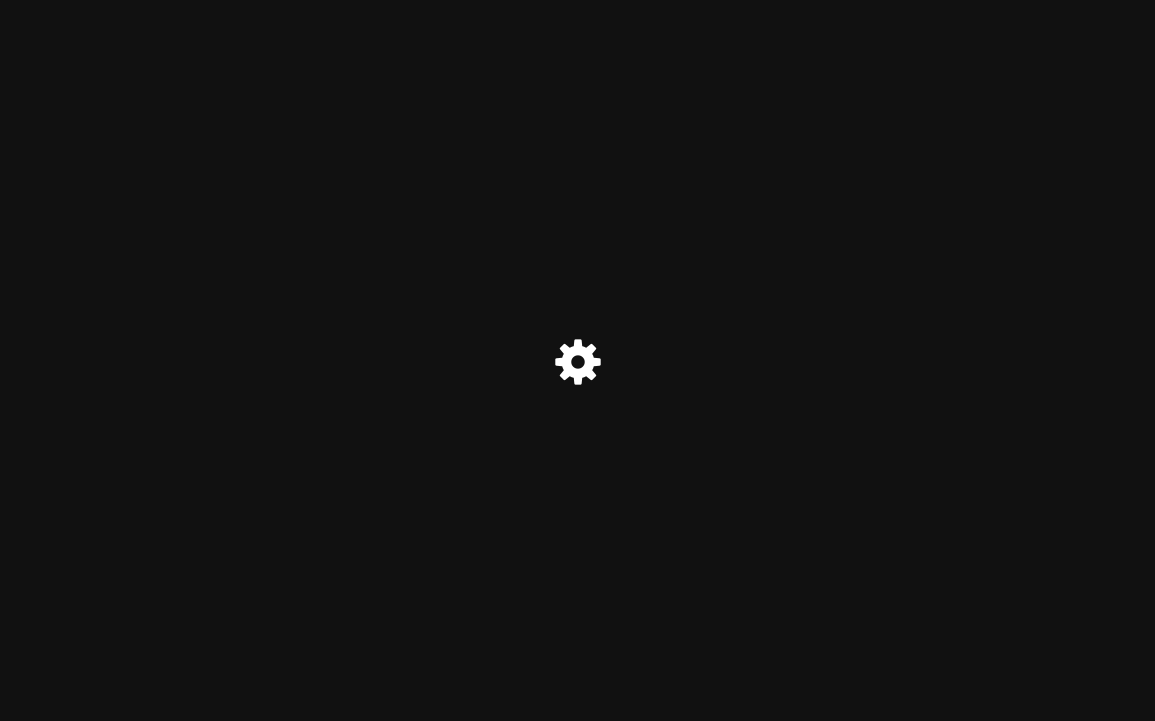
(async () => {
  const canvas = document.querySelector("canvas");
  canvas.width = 1155;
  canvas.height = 721;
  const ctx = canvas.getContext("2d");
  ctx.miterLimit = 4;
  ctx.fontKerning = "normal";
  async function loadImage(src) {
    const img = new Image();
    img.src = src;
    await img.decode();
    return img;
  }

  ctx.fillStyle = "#111111";
  ctx.fillRect(0, 0, 1155, 721);
  ctx.drawImage(await loadImage("img/1.png"), 555, 339, 46, 46);
})();
